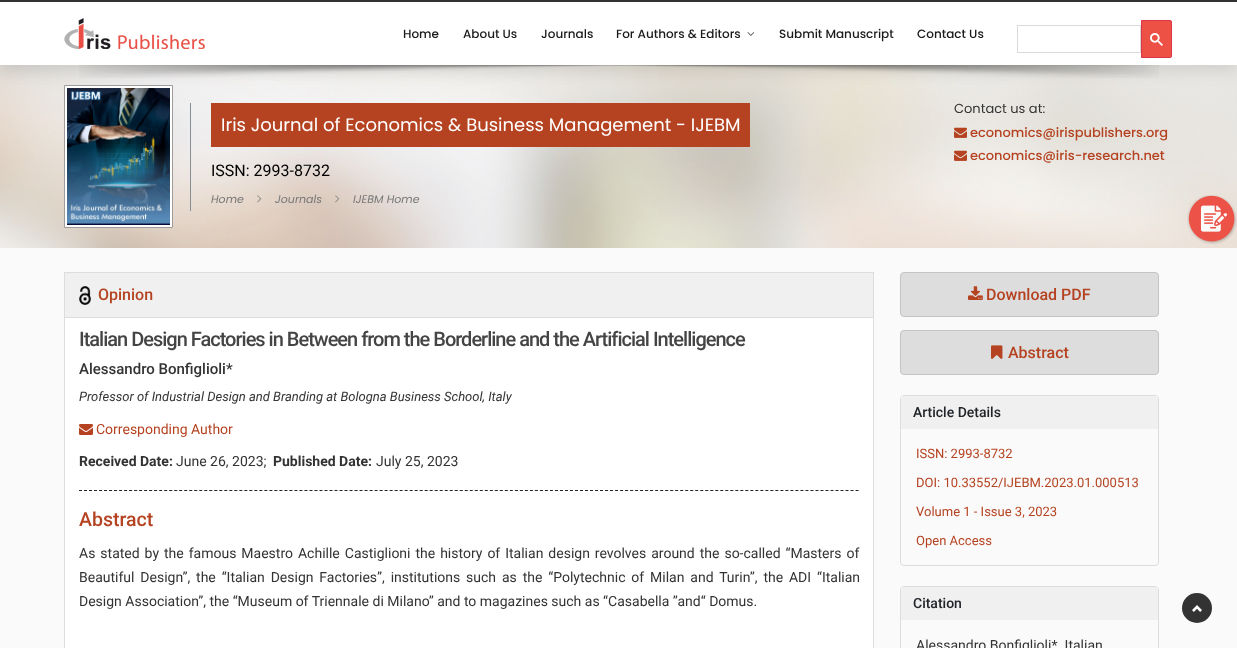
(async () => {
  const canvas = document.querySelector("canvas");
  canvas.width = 1237;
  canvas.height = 648;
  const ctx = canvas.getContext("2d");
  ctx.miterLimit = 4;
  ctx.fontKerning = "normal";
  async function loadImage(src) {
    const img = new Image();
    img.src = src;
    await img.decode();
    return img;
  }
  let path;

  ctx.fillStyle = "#fafafa";
  ctx.fillRect(0, 0, 1237, 648);
  ctx.fillStyle = "#333333";
  ctx.fillRect(0, 0, 1237, 2);
  ctx.drawImage(await loadImage("img/5.png"), 0, 65, 1237, 183);
  ctx.drawImage(await loadImage("img/6.png"), 79, 65, 1080, 13);
  ctx.fillStyle = "#ffffff";
  ctx.beginPath();
  ctx.rect(64.5, 85.5, 108, 142);
  ctx.fill();
  ctx.strokeStyle = "#9e9b9b";
  ctx.stroke();
  ctx.drawImage(await loadImage("img/7.png"), 67, 88, 103, 137);
  ctx.fillStyle = "rgba(0, 0, 0, 0.1)";
  ctx.filter = "blur(7.5px)";
  ctx.beginPath();
  ctx.rect(0, 8, 1237, 63);
  ctx.fill();
  ctx.filter = "none";
  ctx.fillStyle = "#ffffff";
  ctx.fillRect(0, 2, 1237, 63);
  ctx.drawImage(await loadImage("img/1.png"), 64, 18, 141, 31);
  ctx.drawImage(await loadImage("img/2.png"), 747, 32, 8, 4);
  ctx.strokeStyle = "#d9d9d9";
  ctx.strokeRect(1017.5, 25.5, 123, 27);
  ctx.fillStyle = "#ed5145";
  ctx.beginPath();
  ctx.roundRect(1141.5, 20.5, 30, 37, [0, 1.5, 1.5, 0]);
  ctx.fill();
  ctx.strokeStyle = "#dc3545";
  ctx.stroke();
  ctx.drawImage(await loadImage("img/3.png"), 1150, 33, 13, 13);
  ctx.drawImage(await loadImage("img/4.png"), 1187, 195, 50, 49);
  ctx.fillStyle = "#868e96";
  ctx.fillRect(190, 103, 1, 108);
  ctx.fillStyle = "#b54321";
  ctx.fillRect(211, 103, 539, 44);
  ctx.drawImage(await loadImage("img/8.png"), 257, 195, 5, 8);
  ctx.drawImage(await loadImage("img/9.png"), 335, 195, 5, 8);
  ctx.drawImage(await loadImage("img/10.png"), 954, 127, 13, 11);
  ctx.drawImage(await loadImage("img/11.png"), 954, 150, 13, 11);
  ctx.fillStyle = "#ffffff";
  ctx.fillRect(65, 318, 808, 330);
  ctx.strokeStyle = "#dddddd";
  ctx.strokeRect(64.5, 272.5, 809, 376);
  ctx.fillStyle = "#f0f0f0";
  ctx.fillRect(65, 273, 808, 44);
  ctx.fillStyle = "#dddddd";
  ctx.fillRect(65, 317, 808, 1);
  ctx.drawImage(await loadImage("img/12.png"), 79, 286, 12, 19);
  ctx.drawImage(await loadImage("img/13.png"), 79, 424, 14, 11);
  path = new Path2D("M79 490.5H859");
  ctx.strokeStyle = "#212529";
  ctx.setLineDash([3, 2.01]);
  ctx.stroke(path);
  ctx.beginPath();
  ctx.roundRect(900.5, 272.5, 258, 44, 3.5);
  ctx.fill();
  ctx.strokeStyle = "#c5c3c3";
  ctx.setLineDash([]);
  ctx.stroke();
  ctx.drawImage(await loadImage("img/14.png"), 968, 286, 15, 14);
  ctx.beginPath();
  ctx.roundRect(900.5, 330.5, 258, 44, 3.5);
  ctx.fill();
  ctx.stroke();
  ctx.drawImage(await loadImage("img/15.png"), 991, 345, 12, 14);
  ctx.beginPath();
  ctx.roundRect(900.5, 395.5, 258, 170, 3.5);
  ctx.strokeStyle = "#dddddd";
  ctx.stroke();
  ctx.fillStyle = "#f0f0f0";
  ctx.fillRect(901, 396, 257, 33);
  ctx.beginPath();
  ctx.roundRect(900.5, 586.5, 258, 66, 3.5);
  ctx.stroke();
  ctx.fillRect(901, 587, 257, 33);
  ctx.fillStyle = "#333333";
  ctx.beginPath();
  ctx.arc(1197, 608, 15, 0, Math.PI * 2);
  ctx.fill();
  ctx.drawImage(await loadImage("img/16.png"), 1192, 605, 10, 7);
  ctx.font = "500 12px Poppins";
  ctx.fillStyle = "#1a1a1a";
  for (const [text, x, y] of [
    ["Home", 403, 38],
    ["About Us", 463, 38],
    ["Journals", 541, 38],
    ["For Authors & Editors", 616, 38],
    ["Submit Manuscript", 779, 38],
    ["Contact Us", 917, 38],
  ]) {
    ctx.fillText(text, x, y);
  }
  ctx.font = "18px Poppins";
  ctx.fillStyle = "#ffffff";
  ctx.fillText("Iris Journal of Economics & Business Management - IJEBM", 221, 131);
  ctx.font = "16px Roboto";
  ctx.fillStyle = "#000000";
  ctx.fillText("ISSN: 2993-8732", 211, 176);
  ctx.font = "italic 11px Poppins";
  ctx.fillStyle = "#777777";
  for (const [text, x, y] of [
    ["Home", 211, 203],
    ["Journals", 275, 203],
    ["IJEBM Home", 353, 203],
  ]) {
    ctx.fillText(text, x, y);
  }
  ctx.font = "13px Poppins";
  ctx.fillStyle = "#333333";
  ctx.fillText("Contact us at:", 954, 113);
  ctx.font = "500 13px Poppins";
  ctx.fillStyle = "#b54321";
  ctx.fillText("economics@irispublishers.org", 970, 137);
  ctx.fillText("economics@iris-research.net", 970, 160);
  ctx.font = "500 16px Roboto";
  ctx.fillText("Opinion", 98, 300);
  ctx.letterSpacing = "-1px";
  ctx.font = "500 20px Roboto";
  ctx.fillStyle = "#444444";
  ctx.fillText("Italian Design Factories in Between from the Borderline and the Artificial Intelligence", 79, 346);
  ctx.letterSpacing = "0px";
  ctx.font = "500 15px Roboto";
  ctx.fillStyle = "#333333";
  ctx.fillText("Alessandro Bonfiglioli*", 79, 374);
  ctx.font = "italic 13px Roboto";
  ctx.fillText("Professor of Industrial Design and Branding at Bologna Business School, Italy", 79, 401);
  ctx.font = "14px Roboto";
  ctx.fillStyle = "#b54321";
  ctx.fillText("Corresponding Author", 96, 434);
  ctx.font = "bold 14px Roboto";
  ctx.fillStyle = "#333333";
  ctx.fillText("Received Date:", 79, 466);
  ctx.font = "14px Roboto";
  ctx.fillText("June 26, 2023;", 176, 466);
  ctx.font = "bold 14px Roboto";
  ctx.fillText("Published Date:", 273, 466);
  ctx.font = "14px Roboto";
  ctx.fillText("July 25, 2023", 376, 466);
  ctx.font = "500 19.5px Roboto";
  ctx.fillStyle = "#b54321";
  ctx.fillText("Abstract", 79, 526);
  ctx.wordSpacing = "1.5px";
  ctx.font = "14px Roboto";
  ctx.fillStyle = "#333333";
  ctx.fillText("As stated by the famous Maestro Achille Castiglioni the history of Italian design revolves around the so-called “Masters of", 79, 558);
  ctx.wordSpacing = "2.4px";
  ctx.fillText("Beautiful Design”, the “Italian Design Factories”, institutions such as the “Polytechnic of Milan and Turin”, the ADI “Italian", 79, 582);
  ctx.wordSpacing = "0px";
  ctx.fillText("Design Association”, the “Museum of Triennale di Milano” and to magazines such as “Casabella ”and“ Domus.", 79, 606);
  ctx.font = "500 16px Roboto";
  ctx.fillStyle = "#b54321";
  ctx.fillText("Download PDF", 986, 300);
  ctx.fillText("Abstract", 1008, 358);
  ctx.font = "500 14px Roboto";
  ctx.fillStyle = "#212529";
  ctx.fillText("Article Details", 913, 417);
  ctx.font = "13px Roboto";
  ctx.fillStyle = "#b54321";
  for (const [text, x, y] of [
    ["ISSN: 2993-8732", 916, 458],
    ["DOI: 10.33552/IJEBM.2023.01.000513", 916, 487],
    ["Volume 1 - Issue 3, 2023", 916, 516],
    ["Open Access", 916, 545],
  ]) {
    ctx.fillText(text, x, y);
  }
  ctx.font = "500 14px Roboto";
  ctx.fillStyle = "#212529";
  ctx.fillText("Citation", 913, 608);
  ctx.font = "14px Roboto";
  ctx.fillStyle = "#333333";
  ctx.fillText("Alessandro Bonfiglioli*. Italian", 916, 650);
})();
